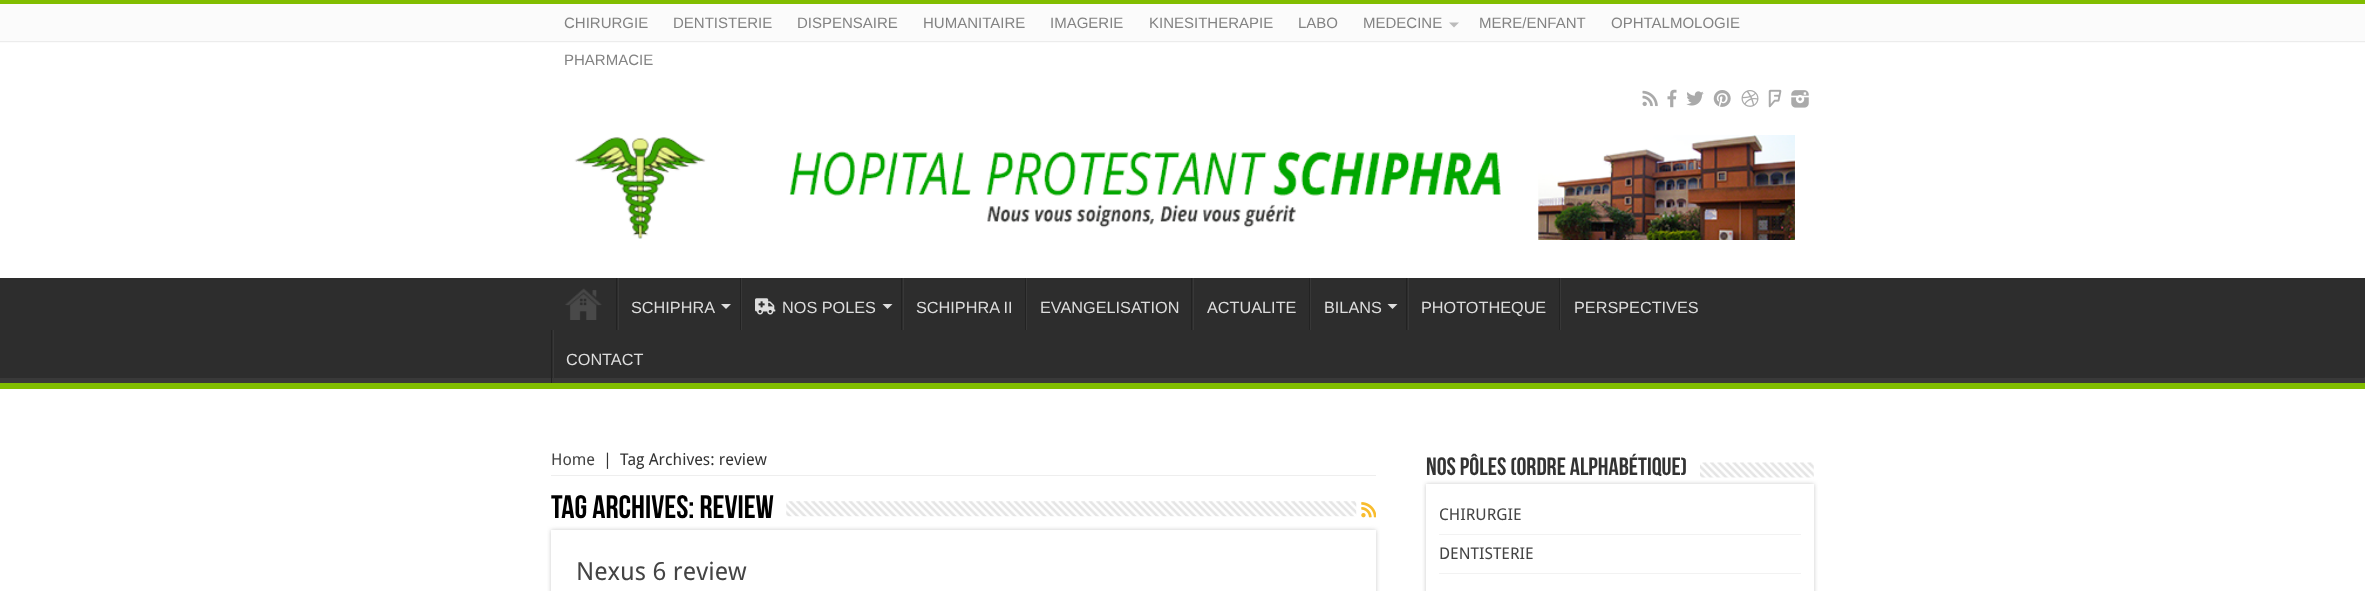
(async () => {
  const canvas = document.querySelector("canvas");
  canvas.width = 2365;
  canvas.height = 591;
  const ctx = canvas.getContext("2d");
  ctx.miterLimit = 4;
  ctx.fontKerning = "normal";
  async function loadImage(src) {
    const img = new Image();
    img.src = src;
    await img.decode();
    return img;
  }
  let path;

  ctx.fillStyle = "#ffffff";
  ctx.fillRect(0, 0, 2365, 591);
  for (const [x, y, w, h, color] of [
    [0, 0, 2365, 4, "#81bd00"],
    [0, 4, 2365, 39, "#fbfbfb"],
    [0, 41, 2365, 1, "#ececec"],
  ]) {
    ctx.fillStyle = color;
    ctx.fillRect(x, y, w, h);
  }
  ctx.fillStyle = "#bbbbbb";
  path = new Path2D("M1449 22.5H1459L1454 27.5Z");
  ctx.fill(path);
  ctx.drawImage(await loadImage("img/1.png"), 1642, 90, 16, 17);
  ctx.drawImage(await loadImage("img/2.png"), 1667, 89, 10, 19);
  ctx.drawImage(await loadImage("img/3.png"), 1686, 91, 18, 15);
  ctx.drawImage(await loadImage("img/4.png"), 1713, 90, 18, 17);
  ctx.drawImage(await loadImage("img/5.png"), 1741, 90, 18, 17);
  ctx.drawImage(await loadImage("img/6.png"), 1768, 89, 14, 19);
  ctx.drawImage(await loadImage("img/7.png"), 1791, 90, 18, 18);
  ctx.drawImage(await loadImage("img/8.png"), 574, 135, 1221, 105);
  ctx.fillStyle = "#2d2d2d";
  ctx.fillRect(0, 278, 2365, 100);
  ctx.save();
  ctx.beginPath();
  ctx.rect(0, 278, 2365, 105);
  ctx.clip();
  ctx.fillStyle = "#393939";
  path = new Path2D("M-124 154H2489V506H-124ZM-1 270H2364C2364 270 2365 271 2365 271V376C2365 377 2364 378 2364 378H-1C-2 378-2 377-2 376V271C-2 271-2 270-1 270Z");
  ctx.fill(path, "evenodd");
  ctx.restore();
  ctx.fillStyle = "#81bd00";
  ctx.fillRect(0, 383, 2365, 6);
  ctx.drawImage(await loadImage("img/9.png"), 565, 288, 37, 32);
  ctx.fillStyle = "#222222";
  ctx.fillRect(616, 278, 1, 52);
  ctx.fillStyle = "#383838";
  ctx.fillRect(618, 278, 1, 52);
  ctx.fillStyle = "#dddddd";
  path = new Path2D("M721 304H731L726 309Z");
  ctx.fill(path);
  ctx.fillStyle = "#222222";
  ctx.fillRect(740, 278, 1, 52);
  ctx.fillStyle = "#383838";
  ctx.fillRect(741, 278, 1, 52);
  ctx.drawImage(await loadImage("img/10.png"), 755, 298, 21, 17);
  ctx.fillStyle = "#dddddd";
  path = new Path2D("M882.5 304H892.5L887.5 309Z");
  ctx.fill(path);
  for (const [x, y, w, h, color] of [
    [901, 278, 1, 52, "#222222"],
    [903, 278, 1, 52, "#383838"],
    [1025, 278, 1, 52, "#222222"],
    [1026, 278, 1, 52, "#383838"],
    [1191, 278, 1, 52, "#222222"],
    [1193, 278, 1, 52, "#383838"],
    [1309, 278, 1, 52, "#222222"],
    [1310, 278, 1, 52, "#383838"],
  ]) {
    ctx.fillStyle = color;
    ctx.fillRect(x, y, w, h);
  }
  ctx.fillStyle = "#dddddd";
  path = new Path2D("M1387.5 304H1397.5L1392.5 309Z");
  ctx.fill(path);
  for (const [x, y, w, h, color] of [
    [1406, 278, 1, 52, "#222222"],
    [1408, 278, 1, 52, "#383838"],
    [1559, 278, 1, 52, "#222222"],
    [1560, 278, 1, 52, "#383838"],
    [551, 330, 1, 53, "#222222"],
    [553, 330, 1, 53, "#383838"],
    [551, 475, 825, 1, "#eeeeee"],
  ]) {
    ctx.fillStyle = color;
    ctx.fillRect(x, y, w, h);
  }
  ctx.drawImage(await loadImage("img/11.png"), 786, 501, 571, 16);
  ctx.drawImage(await loadImage("img/12.png"), 1361, 502, 15, 16);
  ctx.fillStyle = "#cacaca";
  ctx.filter = "blur(2px)";
  ctx.beginPath();
  ctx.rect(551, 530, 825, 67);
  ctx.fill();
  ctx.filter = "none";
  ctx.fillStyle = "#ffffff";
  ctx.fillRect(551, 530, 825, 61);
  ctx.fillStyle = "#cacaca";
  ctx.filter = "blur(2px)";
  ctx.beginPath();
  ctx.rect(1426, 484, 388, 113);
  ctx.fill();
  ctx.filter = "none";
  ctx.drawImage(await loadImage("img/13.png"), 1700, 462, 114, 16);
  for (const [x, y, w, h, color] of [
    [1426, 484, 388, 107, "#ffffff"],
    [1439, 534, 362, 1, "#f2f2f2"],
    [1439, 573, 362, 1, "#f2f2f2"],
  ]) {
    ctx.fillStyle = color;
    ctx.fillRect(x, y, w, h);
  }
  ctx.font = "15px Liberation Sans";
  ctx.fillStyle = "#838383";
  for (const [text, x, y] of [
    ["CHIRURGIE", 564, 28],
    ["DENTISTERIE", 673, 28],
    ["DISPENSAIRE", 797, 28],
    ["HUMANITAIRE", 923, 28],
    ["IMAGERIE", 1050, 28],
    ["KINESITHERAPIE", 1149, 28],
    ["LABO", 1298, 28],
    ["MEDECINE", 1363, 28],
    ["MERE/ENFANT", 1479, 28],
    ["OPHTALMOLOGIE", 1611, 28],
    ["PHARMACIE", 564, 65],
  ]) {
    ctx.fillText(text, x, y);
  }
  ctx.font = "16.25px Liberation Sans";
  ctx.fillStyle = "#dddddd";
  for (const [text, x, y] of [
    ["SCHIPHRA", 631, 313],
    ["NOS POLES", 782, 313],
    ["SCHIPHRA II", 916, 313],
    ["EVANGELISATION", 1040, 313],
    ["ACTUALITE", 1207, 313],
    ["BILANS", 1324, 313],
    ["PHOTOTHEQUE", 1421, 313],
    ["PERSPECTIVES", 1574, 313],
    ["CONTACT", 566, 365],
  ]) {
    ctx.fillText(text, x, y);
  }
  ctx.font = "16.25px Droid Sans";
  ctx.fillStyle = "#444444";
  ctx.fillText("Home", 551, 465);
  ctx.fillStyle = "#333333";
  ctx.fillText("|", 603, 465);
  ctx.fillText("Tag Archives: review", 620, 465);
  ctx.font = "bold 32.5px Bebas Neue";
  ctx.fillStyle = "#000000";
  ctx.fillText("Tag Archives: review", 551, 518);
  ctx.font = "25px Droid Sans";
  ctx.fillStyle = "#444444";
  ctx.fillText("Nexus 6 review", 576, 580);
  ctx.font = "bold 25px Bebas Neue";
  ctx.fillStyle = "#333333";
  ctx.fillText("NOS PÔLES (ordre alphabétique)", 1426, 475);
  ctx.font = "16.25px Droid Sans";
  ctx.fillStyle = "#444444";
  ctx.fillText("CHIRURGIE", 1439, 520);
  ctx.fillText("DENTISTERIE", 1439, 559);
})();
